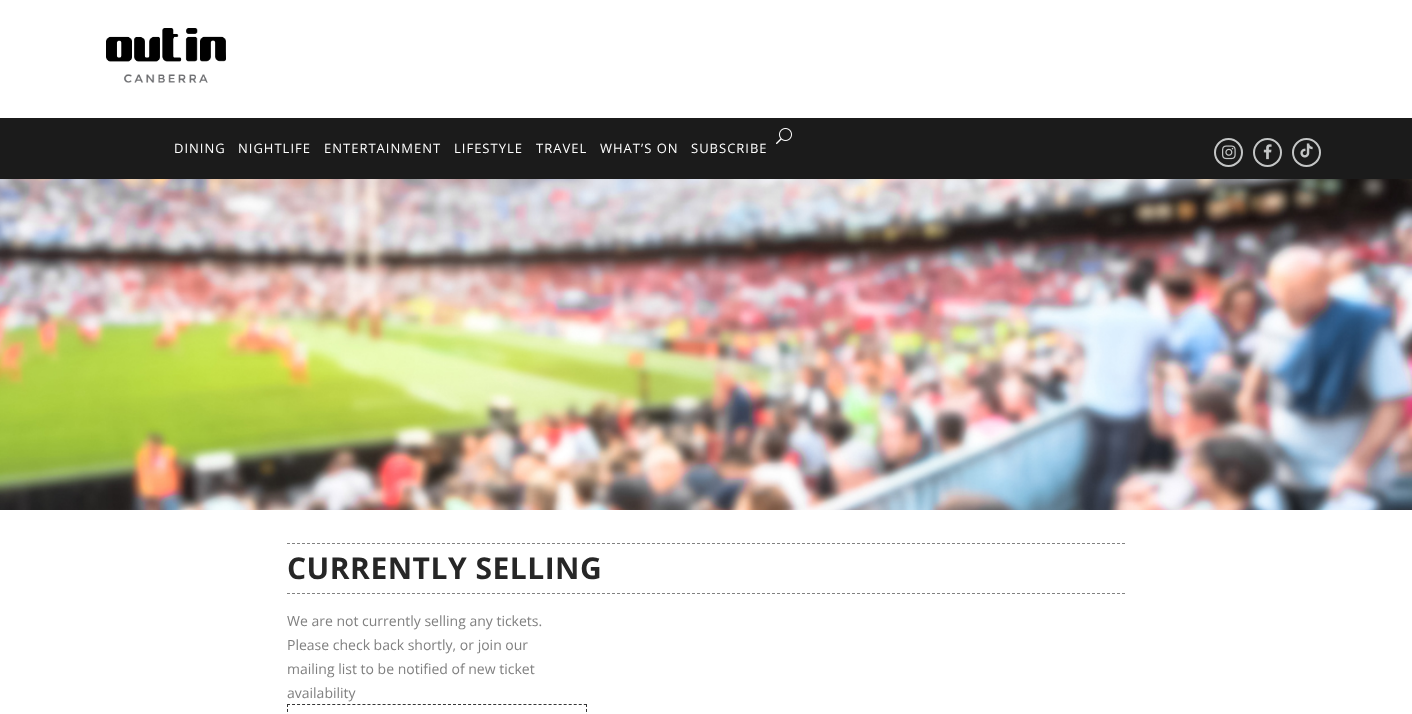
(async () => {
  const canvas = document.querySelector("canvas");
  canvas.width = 1412;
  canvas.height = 714;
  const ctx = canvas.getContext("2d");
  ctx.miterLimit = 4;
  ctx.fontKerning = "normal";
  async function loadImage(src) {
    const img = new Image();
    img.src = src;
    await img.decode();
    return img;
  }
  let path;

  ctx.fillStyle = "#ffffff";
  ctx.fillRect(0, 0, 1412, 714);
  ctx.drawImage(await loadImage("img/1.png"), 106, 28, 120, 55);
  ctx.fillStyle = "#1b1b1b";
  ctx.fillRect(0, 118, 1412, 61);
  ctx.drawImage(await loadImage("img/2.png"), 776, 128, 16, 16);
  ctx.beginPath();
  ctx.arc(1228.5, 152.5, 13.5, 0, Math.PI * 2);
  ctx.strokeStyle = "#c4c6c6";
  ctx.lineWidth = 2;
  ctx.stroke();
  ctx.drawImage(await loadImage("img/3.png"), 1222, 145, 14, 15);
  ctx.beginPath();
  ctx.arc(1267.5, 152.5, 13.5, 0, Math.PI * 2);
  ctx.stroke();
  ctx.drawImage(await loadImage("img/4.png"), 1263, 144, 9, 16);
  ctx.beginPath();
  ctx.arc(1306.5, 152.5, 13.5, 0, Math.PI * 2);
  ctx.stroke();
  ctx.drawImage(await loadImage("img/5.png"), 1300, 143, 13, 15);
  ctx.drawImage(await loadImage("img/6.png"), 0, 179, 1412, 331);
  path = new Path2D("M287 543.5H1125");
  ctx.strokeStyle = "#828282";
  ctx.lineWidth = 1;
  ctx.setLineDash([3, 2]);
  ctx.stroke(path);
  path = new Path2D("M287 593.5H1125");
  ctx.stroke(path);
  path = new Path2D("M287 704.5H587");
  ctx.strokeStyle = "#343434";
  ctx.setLineDash([3, 2.03]);
  ctx.stroke(path);
  path = new Path2D("M586.5 704V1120");
  ctx.setLineDash([3, 1.98]);
  ctx.stroke(path);
  path = new Path2D("M287.5 704V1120");
  ctx.stroke(path);
  ctx.letterSpacing = "1px";
  ctx.font = "13px Open Sans";
  ctx.fillStyle = "#ffffff";
  for (const [text, x, y] of [
    ["DINING", 174, 153],
    ["NIGHTLIFE", 238, 153],
    ["ENTERTAINMENT", 324, 153],
    ["LIFESTYLE", 454, 153],
    ["TRAVEL", 536, 153],
    ["WHAT’S ON", 600, 153],
    ["SUBSCRIBE", 691, 153],
  ]) {
    ctx.fillText(text, x, y);
  }
  ctx.letterSpacing = "0.5px";
  ctx.font = "bold 30px Open Sans";
  ctx.fillStyle = "#262626";
  ctx.fillText("CURRENTLY SELLING", 287, 579);
  ctx.letterSpacing = "0px";
  ctx.font = "14px Open Sans";
  ctx.fillStyle = "#808080";
  for (const [text, x, y] of [
    ["We are not currently selling any tickets.", 287, 626],
    ["Please check back shortly, or join our", 287, 650],
    ["mailing list to be notified of new ticket", 287, 674],
    ["availability", 287, 698],
  ]) {
    ctx.fillText(text, x, y);
  }
})();
